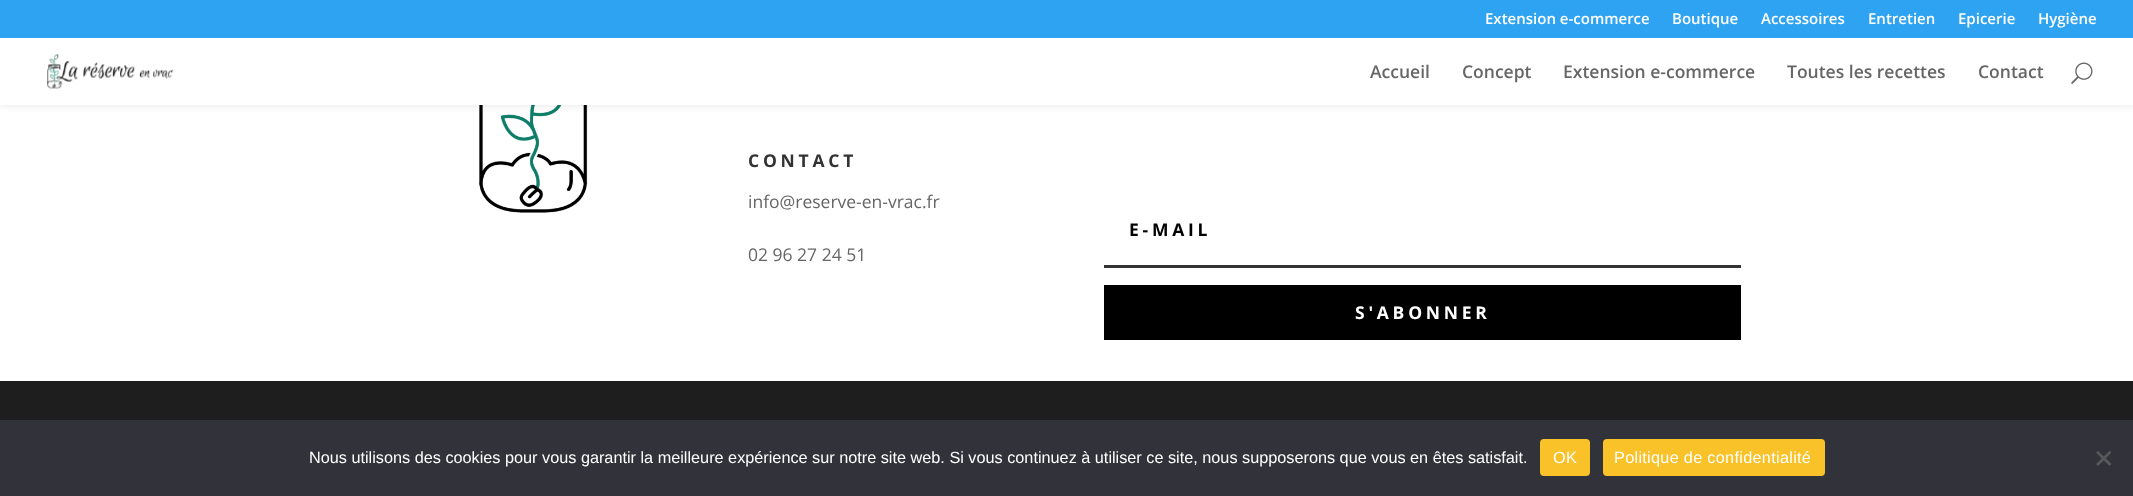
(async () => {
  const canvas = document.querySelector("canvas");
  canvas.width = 2133;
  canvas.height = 496;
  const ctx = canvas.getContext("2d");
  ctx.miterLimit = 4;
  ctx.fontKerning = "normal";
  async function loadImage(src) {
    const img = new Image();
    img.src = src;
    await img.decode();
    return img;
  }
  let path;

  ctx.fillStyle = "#ffffff";
  ctx.fillRect(0, 0, 2133, 496);
  ctx.drawImage(await loadImage("img/3.png"), 479, 105, 109, 108);
  ctx.fillStyle = "rgba(0, 0, 0, 0.1)";
  ctx.filter = "blur(4.5px)";
  ctx.beginPath();
  ctx.rect(0, 38, 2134, 67);
  ctx.fill();
  ctx.filter = "none";
  ctx.fillStyle = "#2ea3f2";
  ctx.fillRect(0, 0, 2133, 38);
  ctx.fillStyle = "#ffffff";
  ctx.fillRect(0, 38, 2133, 67);
  ctx.drawImage(await loadImage("img/1.png"), 47, 54, 127, 35);
  ctx.drawImage(await loadImage("img/2.png"), 2071, 62, 22, 22);
  for (const [x, y, w, h, color] of [
    [1104, 265, 637, 3, "#333333"],
    [1104, 285, 637, 55, "#000000"],
    [0, 381, 2133, 39, "#1e1e1e"],
    [0, 420, 2133, 76, "#32323a"],
  ]) {
    ctx.fillStyle = color;
    ctx.fillRect(x, y, w, h);
  }
  ctx.fillStyle = "#f9c229";
  ctx.beginPath();
  ctx.roundRect(1540, 439, 50, 37, 4);
  ctx.fill();
  ctx.beginPath();
  ctx.roundRect(1603, 439, 222, 37, 4);
  ctx.fill();
  ctx.fillStyle = "#59595d";
  path = new Path2D("M2109.5 451L2111.5 452.5L2098 466L2096 464Z");
  ctx.fill(path);
  path = new Path2D("M2096 452.5L2098 451L2111.5 464L2109.5 466Z");
  ctx.fill(path);
  ctx.font = "600 15px Open Sans";
  ctx.fillStyle = "#ffffff";
  for (const [text, x, y] of [
    ["Extension e-commerce", 1485, 24],
    ["Boutique", 1672, 24],
    ["Accessoires", 1761, 24],
    ["Entretien", 1868, 24],
    ["Epicerie", 1958, 24],
    ["Hygiène", 2038, 24],
  ]) {
    ctx.fillText(text, x, y);
  }
  ctx.font = "600 17.5px Open Sans";
  ctx.fillStyle = "#666666";
  for (const [text, x, y] of [
    ["Accueil", 1370, 78],
    ["Concept", 1462, 78],
    ["Extension e-commerce", 1563, 78],
    ["Toutes les recettes", 1787, 78],
    ["Contact", 1978, 78],
  ]) {
    ctx.fillText(text, x, y);
  }
  ctx.letterSpacing = "3.75px";
  ctx.font = "bold 17.5px Open Sans";
  ctx.fillStyle = "#333333";
  ctx.fillText("CONTACT", 748, 167);
  ctx.letterSpacing = "0px";
  ctx.font = "17.5px Open Sans";
  ctx.fillStyle = "#666666";
  ctx.fillText("info@reserve-en-vrac.fr", 748, 208);
  ctx.fillText("02 96 27 24 51", 748, 261);
  ctx.letterSpacing = "3.75px";
  ctx.font = "bold 17.5px Open Sans";
  ctx.fillStyle = "#000000";
  ctx.fillText("E-MAIL", 1129, 236);
  ctx.fillStyle = "#ffffff";
  ctx.fillText("S'ABONNER", 1355, 319);
  ctx.letterSpacing = "0px";
  ctx.font = "16.25px Liberation Sans";
  ctx.fillText("Nous utilisons des cookies pour vous garantir la meilleure expérience sur notre site web. Si vous continuez à utiliser ce site, nous supposerons que vous en êtes satisfait.", 309, 463);
  ctx.letterSpacing = "0.3px";
  ctx.fillText("OK", 1553, 463);
  ctx.fillText("Politique de confidentialité", 1614, 463);
})();
